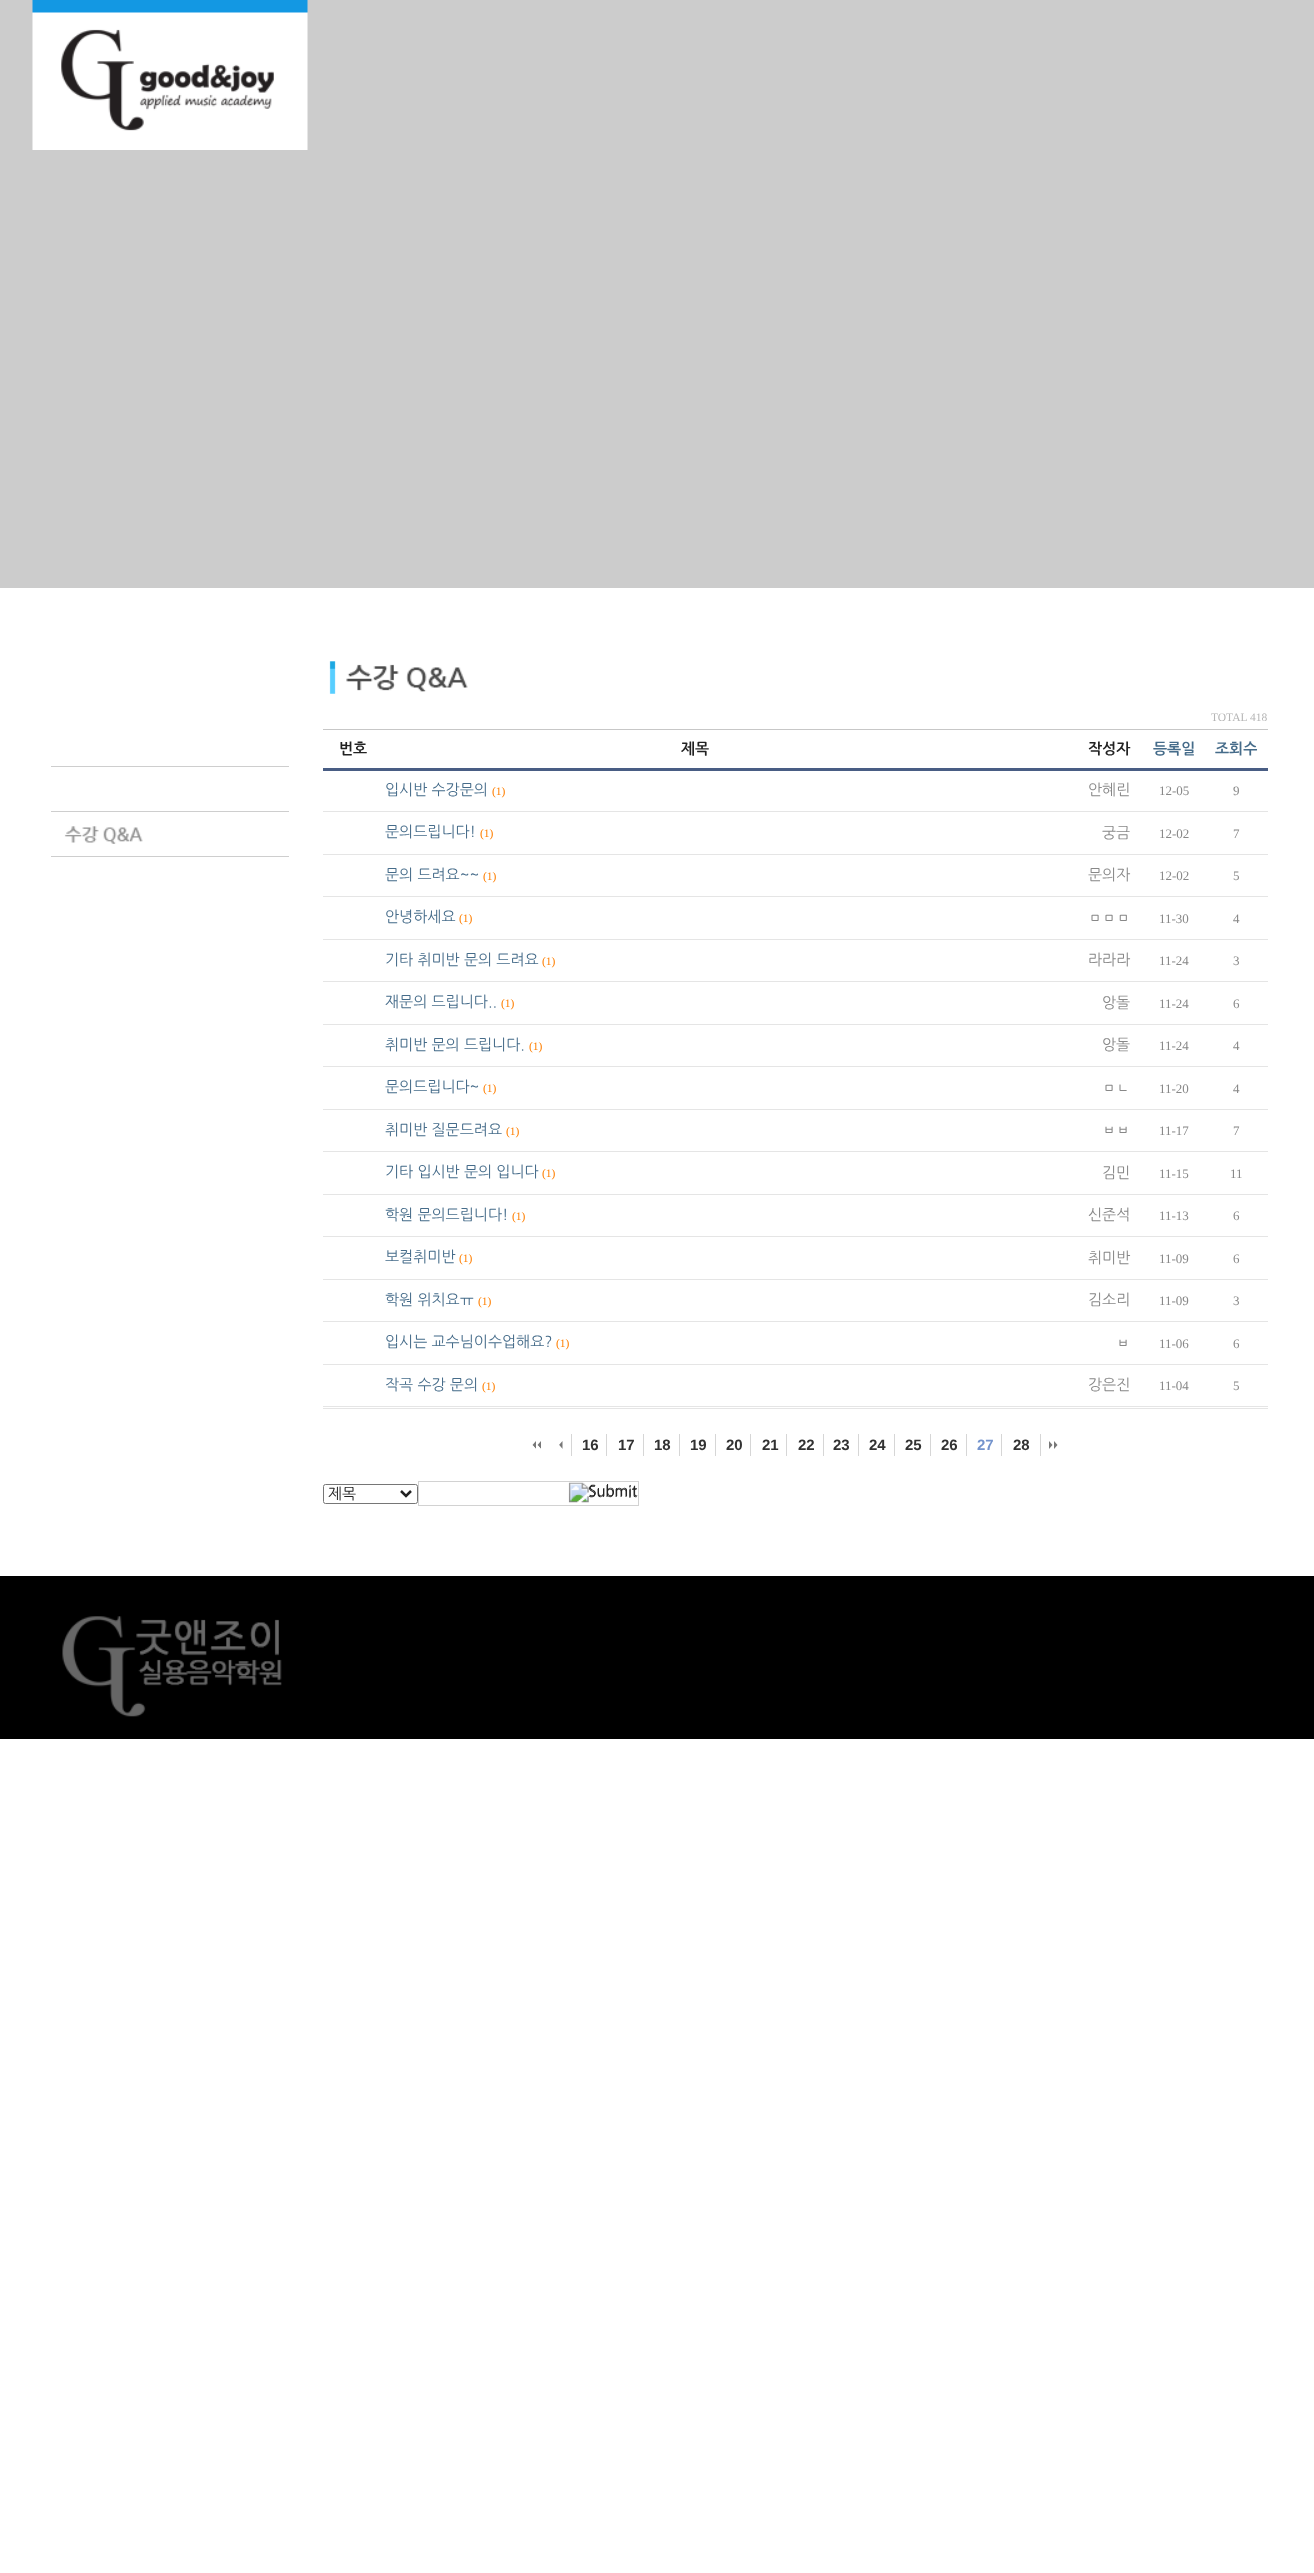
(async () => {
  const canvas = document.querySelector("canvas");
  canvas.width = 1314;
  canvas.height = 2573;
  const ctx = canvas.getContext("2d");
  ctx.miterLimit = 4;
  ctx.fontKerning = "normal";
  async function loadImage(src) {
    const img = new Image();
    img.src = src;
    await img.decode();
    return img;
  }
  let path;

  ctx.fillStyle = "#ffffff";
  ctx.fillRect(0, 0, 1314, 2573);
  ctx.fillStyle = "#cccccc";
  ctx.fillRect(0, 0, 1314, 588);
  ctx.drawImage(await loadImage("img/1.png"), 32, 0, 276, 150);
  ctx.fillStyle = "#cecece";
  ctx.fillRect(51, 766, 238, 1);
  ctx.fillRect(51, 811, 238, 1);
  ctx.drawImage(await loadImage("img/2.png"), 64, 826, 79, 18);
  ctx.fillRect(51, 856, 238, 1);
  ctx.drawImage(await loadImage("img/3.png"), 329, 661, 139, 33);
  for (const [x, y, w, h, color] of [
    [323, 729, 945, 1, "#c7c7c7"],
    [323, 768, 945, 3, "#495d84"],
    [323, 811, 945, 1, "#e5e5e5"],
    [323, 854, 945, 1, "#e5e5e5"],
    [323, 896, 945, 1, "#e5e5e5"],
    [323, 939, 945, 1, "#e5e5e5"],
    [323, 981, 945, 1, "#e5e5e5"],
    [323, 1024, 945, 1, "#e5e5e5"],
    [323, 1066, 945, 1, "#e5e5e5"],
    [323, 1109, 945, 1, "#e5e5e5"],
    [323, 1151, 945, 1, "#e5e5e5"],
    [323, 1194, 945, 1, "#e5e5e5"],
    [323, 1236, 945, 1, "#e5e5e5"],
    [323, 1279, 945, 1, "#e5e5e5"],
    [323, 1321, 945, 1, "#e5e5e5"],
    [323, 1364, 945, 1, "#e5e5e5"],
    [323, 1406, 945, 1, "#e5e5e5"],
    [323, 1408, 945, 1, "#e5e5e5"],
  ]) {
    ctx.fillStyle = color;
    ctx.fillRect(x, y, w, h);
  }
  ctx.fillStyle = "#777777";
  path = new Path2D("M536 1441V1449L532.5 1445Z");
  ctx.fill(path);
  ctx.fillStyle = "#ffffff";
  path = new Path2D("M536 1449H532.5V1445Z");
  ctx.fill(path);
  ctx.fillStyle = "#777777";
  path = new Path2D("M541 1441V1449L537.5 1445Z");
  ctx.fill(path);
  ctx.fillStyle = "#ffffff";
  path = new Path2D("M541 1449H537.5V1445Z");
  ctx.fill(path);
  ctx.fillStyle = "#777777";
  path = new Path2D("M562.5 1441V1449L559 1445Z");
  ctx.fill(path);
  ctx.fillStyle = "#ffffff";
  path = new Path2D("M562.5 1449H559V1445Z");
  ctx.fill(path);
  for (const [x, y, w, h, color] of [
    [571, 1434, 1, 22, "#d6d6d6"],
    [606, 1434, 1, 22, "#d6d6d6"],
    [643, 1434, 1, 22, "#d6d6d6"],
    [679, 1434, 1, 22, "#d6d6d6"],
    [715, 1434, 1, 22, "#d6d6d6"],
    [750, 1434, 1, 22, "#d6d6d6"],
    [786, 1434, 1, 22, "#d6d6d6"],
    [823, 1434, 1, 22, "#d6d6d6"],
    [858, 1434, 1, 22, "#d6d6d6"],
    [894, 1434, 1, 22, "#d6d6d6"],
    [930, 1434, 1, 22, "#d6d6d6"],
    [966, 1434, 1, 22, "#d6d6d6"],
    [1040, 1434, 1, 22, "#d6d6d6"],
    [1001, 1434, 1, 22, "#d6d6d6"],
  ]) {
    ctx.fillStyle = color;
    ctx.fillRect(x, y, w, h);
  }
  ctx.fillStyle = "#777777";
  path = new Path2D("M1049 1449V1441L1052.5 1445ZM1054 1449V1441L1057.5 1445Z");
  ctx.fill(path);
  ctx.beginPath();
  ctx.roundRect(323.5, 1484.5, 94, 19, 2);
  ctx.strokeStyle = "#767676";
  ctx.stroke();
  path = new Path2D("M401 1491L406 1496L411 1491");
  ctx.strokeStyle = "#222222";
  ctx.lineWidth = 2.5;
  ctx.stroke(path);
  ctx.strokeStyle = "#d2d2d2";
  ctx.lineWidth = 1;
  ctx.strokeRect(418.5, 1481.5, 220, 24);
  ctx.drawImage(await loadImage("img/4.png"), 568, 1482, 70, 21);
  ctx.fillStyle = "#000000";
  ctx.fillRect(0, 1576, 1314, 163);
  ctx.drawImage(await loadImage("img/5.png"), 62, 1616, 220, 101);
  ctx.font = "11.5px Liberation Serif";
  ctx.fillStyle = "#b5b5b5";
  ctx.fillText("TOTAL 418", 1211, 721);
  ctx.font = "bold 15px NanumGothic";
  ctx.fillStyle = "#222222";
  for (const [text, x, y] of [
    ["번호", 339, 754],
    ["제목", 681, 754],
    ["작성자", 1088, 754],
  ]) {
    ctx.fillText(text, x, y);
  }
  ctx.fillStyle = "#466c8a";
  ctx.fillText("등록일", 1153, 754);
  ctx.fillText("조회수", 1215, 754);
  ctx.font = "15px NanumGothic";
  ctx.fillText("입시반 수강문의", 385, 795);
  ctx.font = "11.5px Liberation Serif";
  ctx.fillStyle = "#ff7f00";
  ctx.fillText("(1)", 492, 795);
  ctx.font = "15px NanumGothic";
  ctx.fillStyle = "#888888";
  ctx.fillText("안혜린", 1088, 795);
  ctx.font = "13px Liberation Serif";
  ctx.fillText("12-05", 1159, 795);
  ctx.fillText("9", 1233, 795);
  ctx.font = "15px NanumGothic";
  ctx.fillStyle = "#466c8a";
  ctx.fillText("문의드립니다!", 385, 837);
  ctx.font = "11.5px Liberation Serif";
  ctx.fillStyle = "#ff7f00";
  ctx.fillText("(1)", 480, 837);
  ctx.font = "15px NanumGothic";
  ctx.fillStyle = "#888888";
  ctx.fillText("궁금", 1102, 838);
  ctx.font = "13px Liberation Serif";
  ctx.fillText("12-02", 1159, 838);
  ctx.fillText("7", 1233, 838);
  ctx.font = "15px NanumGothic";
  ctx.fillStyle = "#466c8a";
  ctx.fillText("문의 드려요~~", 385, 880);
  ctx.font = "11.5px Liberation Serif";
  ctx.fillStyle = "#ff7f00";
  ctx.fillText("(1)", 483, 880);
  ctx.font = "15px NanumGothic";
  ctx.fillStyle = "#888888";
  ctx.fillText("문의자", 1088, 880);
  ctx.font = "13px Liberation Serif";
  ctx.fillText("12-02", 1159, 880);
  ctx.fillText("5", 1233, 880);
  ctx.font = "15px NanumGothic";
  ctx.fillStyle = "#466c8a";
  ctx.fillText("안녕하세요", 385, 922);
  ctx.font = "11.5px Liberation Serif";
  ctx.fillStyle = "#ff7f00";
  ctx.fillText("(1)", 459, 922);
  ctx.font = "15px NanumGothic";
  ctx.fillStyle = "#888888";
  ctx.fillText("ㅁㅁㅁ", 1088, 923);
  ctx.font = "13px Liberation Serif";
  ctx.fillText("11-30", 1159, 923);
  ctx.fillText("4", 1233, 923);
  ctx.font = "15px NanumGothic";
  ctx.fillStyle = "#466c8a";
  ctx.fillText("기타 취미반 문의 드려요", 385, 965);
  ctx.font = "11.5px Liberation Serif";
  ctx.fillStyle = "#ff7f00";
  ctx.fillText("(1)", 542, 965);
  ctx.font = "15px NanumGothic";
  ctx.fillStyle = "#888888";
  ctx.fillText("라라라", 1088, 965);
  ctx.font = "13px Liberation Serif";
  ctx.fillText("11-24", 1159, 965);
  ctx.fillText("3", 1233, 965);
  ctx.font = "15px NanumGothic";
  ctx.fillStyle = "#466c8a";
  ctx.fillText("재문의 드립니다..", 385, 1007);
  ctx.font = "11.5px Liberation Serif";
  ctx.fillStyle = "#ff7f00";
  ctx.fillText("(1)", 501, 1007);
  ctx.font = "15px NanumGothic";
  ctx.fillStyle = "#888888";
  ctx.fillText("앙돌", 1102, 1008);
  ctx.font = "13px Liberation Serif";
  ctx.fillText("11-24", 1159, 1008);
  ctx.fillText("6", 1233, 1008);
  ctx.font = "15px NanumGothic";
  ctx.fillStyle = "#466c8a";
  ctx.fillText("취미반 문의 드립니다.", 385, 1050);
  ctx.font = "11.5px Liberation Serif";
  ctx.fillStyle = "#ff7f00";
  ctx.fillText("(1)", 529, 1050);
  ctx.font = "15px NanumGothic";
  ctx.fillStyle = "#888888";
  ctx.fillText("앙돌", 1102, 1050);
  ctx.font = "13px Liberation Serif";
  ctx.fillText("11-24", 1159, 1050);
  ctx.fillText("4", 1233, 1050);
  ctx.font = "15px NanumGothic";
  ctx.fillStyle = "#466c8a";
  ctx.fillText("문의드립니다~", 385, 1092);
  ctx.font = "11.5px Liberation Serif";
  ctx.fillStyle = "#ff7f00";
  ctx.fillText("(1)", 483, 1092);
  ctx.font = "15px NanumGothic";
  ctx.fillStyle = "#888888";
  ctx.fillText("ㅁㄴ", 1102, 1093);
  ctx.font = "13px Liberation Serif";
  ctx.fillText("11-20", 1159, 1093);
  ctx.fillText("4", 1233, 1093);
  ctx.font = "15px NanumGothic";
  ctx.fillStyle = "#466c8a";
  ctx.fillText("취미반 질문드려요", 385, 1135);
  ctx.font = "11.5px Liberation Serif";
  ctx.fillStyle = "#ff7f00";
  ctx.fillText("(1)", 506, 1135);
  ctx.font = "15px NanumGothic";
  ctx.fillStyle = "#888888";
  ctx.fillText("ㅂㅂ", 1102, 1135);
  ctx.font = "13px Liberation Serif";
  ctx.fillText("11-17", 1159, 1135);
  ctx.fillText("7", 1233, 1135);
  ctx.font = "15px NanumGothic";
  ctx.fillStyle = "#466c8a";
  ctx.fillText("기타 입시반 문의 입니다", 385, 1177);
  ctx.font = "11.5px Liberation Serif";
  ctx.fillStyle = "#ff7f00";
  ctx.fillText("(1)", 542, 1177);
  ctx.font = "15px NanumGothic";
  ctx.fillStyle = "#888888";
  ctx.fillText("김민", 1102, 1178);
  ctx.font = "13px Liberation Serif";
  ctx.fillText("11-15", 1159, 1178);
  ctx.fillText("11", 1230, 1178);
  ctx.font = "15px NanumGothic";
  ctx.fillStyle = "#466c8a";
  ctx.fillText("학원 문의드립니다!", 385, 1220);
  ctx.font = "11.5px Liberation Serif";
  ctx.fillStyle = "#ff7f00";
  ctx.fillText("(1)", 512, 1220);
  ctx.font = "15px NanumGothic";
  ctx.fillStyle = "#888888";
  ctx.fillText("신준석", 1088, 1220);
  ctx.font = "13px Liberation Serif";
  ctx.fillText("11-13", 1159, 1220);
  ctx.fillText("6", 1233, 1220);
  ctx.font = "15px NanumGothic";
  ctx.fillStyle = "#466c8a";
  ctx.fillText("보컬취미반", 385, 1262);
  ctx.font = "11.5px Liberation Serif";
  ctx.fillStyle = "#ff7f00";
  ctx.fillText("(1)", 459, 1262);
  ctx.font = "15px NanumGothic";
  ctx.fillStyle = "#888888";
  ctx.fillText("취미반", 1088, 1263);
  ctx.font = "13px Liberation Serif";
  ctx.fillText("11-09", 1159, 1263);
  ctx.fillText("6", 1233, 1263);
  ctx.font = "15px NanumGothic";
  ctx.fillStyle = "#466c8a";
  ctx.fillText("학원 위치요ㅠ", 385, 1305);
  ctx.font = "11.5px Liberation Serif";
  ctx.fillStyle = "#ff7f00";
  ctx.fillText("(1)", 478, 1305);
  ctx.font = "15px NanumGothic";
  ctx.fillStyle = "#888888";
  ctx.fillText("김소리", 1088, 1305);
  ctx.font = "13px Liberation Serif";
  ctx.fillText("11-09", 1159, 1305);
  ctx.fillText("3", 1233, 1305);
  ctx.font = "15px NanumGothic";
  ctx.fillStyle = "#466c8a";
  ctx.fillText("입시는 교수님이수업해요?", 385, 1347);
  ctx.font = "11.5px Liberation Serif";
  ctx.fillStyle = "#ff7f00";
  ctx.fillText("(1)", 556, 1347);
  ctx.font = "15px NanumGothic";
  ctx.fillStyle = "#888888";
  ctx.fillText("ㅂ", 1116, 1348);
  ctx.font = "13px Liberation Serif";
  ctx.fillText("11-06", 1159, 1348);
  ctx.fillText("6", 1233, 1348);
  ctx.font = "15px NanumGothic";
  ctx.fillStyle = "#466c8a";
  ctx.fillText("작곡 수강 문의", 385, 1390);
  ctx.font = "11.5px Liberation Serif";
  ctx.fillStyle = "#ff7f00";
  ctx.fillText("(1)", 482, 1390);
  ctx.font = "15px NanumGothic";
  ctx.fillStyle = "#888888";
  ctx.fillText("강은진", 1088, 1390);
  ctx.font = "13px Liberation Serif";
  ctx.fillText("11-04", 1159, 1390);
  ctx.fillText("5", 1233, 1390);
  ctx.font = "bold 15px Liberation Sans";
  ctx.fillStyle = "#323232";
  for (const [text, x, y] of [
    ["16", 582, 1450],
    ["17", 618, 1450],
    ["18", 654, 1450],
    ["19", 690, 1450],
    ["20", 726, 1450],
    ["21", 762, 1450],
    ["22", 798, 1450],
    ["23", 833, 1450],
    ["24", 869, 1450],
    ["25", 905, 1450],
    ["26", 941, 1450],
  ]) {
    ctx.fillText(text, x, y);
  }
  ctx.fillStyle = "#7494cd";
  ctx.fillText("27", 977, 1450);
  ctx.fillStyle = "#323232";
  ctx.fillText("28", 1013, 1450);
  ctx.font = "15px NanumGothic";
  ctx.fillStyle = "#222222";
  ctx.fillText("제목", 328, 1499);
  ctx.fillText("Submit", 588, 1497);
})();
